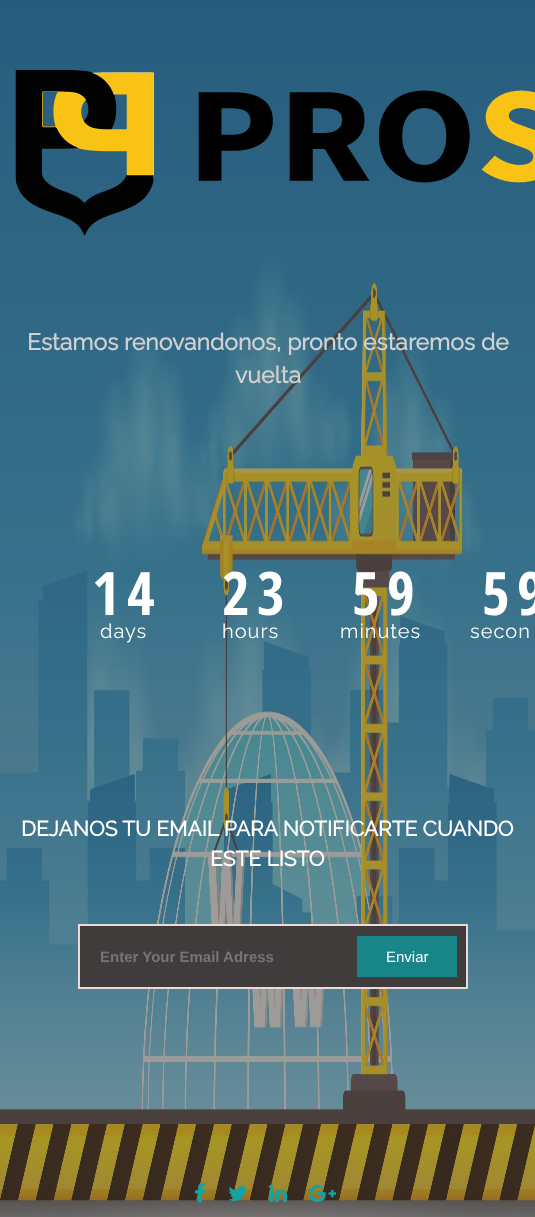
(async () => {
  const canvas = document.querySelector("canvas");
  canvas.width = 535;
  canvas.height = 1217;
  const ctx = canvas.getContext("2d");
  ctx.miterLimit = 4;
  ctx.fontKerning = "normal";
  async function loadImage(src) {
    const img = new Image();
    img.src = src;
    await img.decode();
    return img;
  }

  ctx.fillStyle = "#ffffff";
  ctx.fillRect(0, 0, 535, 1217);
  ctx.drawImage(await loadImage("img/1.png"), 0, 0, 535, 1217);
  ctx.drawImage(await loadImage("img/2.png"), 15, 70, 520, 166);
  ctx.fillStyle = "#403c3b";
  ctx.beginPath();
  ctx.rect(79, 925, 388, 63);
  ctx.fill();
  ctx.strokeStyle = "#eadada";
  ctx.lineWidth = 2;
  ctx.stroke();
  ctx.fillStyle = "#188588";
  ctx.fillRect(357, 936, 100, 41);
  ctx.drawImage(await loadImage("img/3.png"), 195, 1183, 11, 20);
  ctx.drawImage(await loadImage("img/4.png"), 228, 1186, 19, 15);
  ctx.drawImage(await loadImage("img/5.png"), 269, 1184, 18, 18);
  ctx.drawImage(await loadImage("img/6.png"), 309, 1184, 27, 19);
  ctx.font = "bold 23px Raleway";
  ctx.fillStyle = "#d0d0d0";
  ctx.fillText("Estamos renovandonos, pronto estaremos de", 27, 350);
  ctx.fillText("vuelta", 235, 383);
  ctx.letterSpacing = "-1px";
  ctx.font = "bold 60px Open Sans Condensed";
  ctx.fillStyle = "#ffffff";
  ctx.fillText("1", 92, 615);
  ctx.fillText("4", 127, 615);
  ctx.letterSpacing = "1px";
  ctx.font = "100 20px Raleway";
  ctx.fillText("days", 100, 638);
  ctx.letterSpacing = "-1px";
  ctx.font = "bold 60px Open Sans Condensed";
  ctx.fillText("2", 222, 615);
  ctx.fillText("3", 257, 615);
  ctx.letterSpacing = "1px";
  ctx.font = "100 20px Raleway";
  ctx.fillText("hours", 222, 638);
  ctx.letterSpacing = "-1px";
  ctx.font = "bold 60px Open Sans Condensed";
  ctx.fillText("5", 352, 615);
  ctx.fillText("9", 387, 615);
  ctx.letterSpacing = "1px";
  ctx.font = "100 20px Raleway";
  ctx.fillText("minutes", 340, 638);
  ctx.letterSpacing = "-1px";
  ctx.font = "bold 60px Open Sans Condensed";
  ctx.fillText("5", 482, 615);
  ctx.fillText("9", 517, 615);
  ctx.letterSpacing = "1px";
  ctx.font = "100 20px Raleway";
  ctx.fillText("secon", 470, 638);
  ctx.letterSpacing = "0px";
  ctx.font = "bold 21px Raleway";
  ctx.fillText("DEJANOS TU EMAIL PARA NOTIFICARTE CUANDO", 21, 836);
  ctx.fillText("ESTE LISTO", 210, 866);
  ctx.font = "bold 15px Liberation Sans";
  ctx.fillStyle = "#757575";
  ctx.fillText("Enter Your Email Adress", 100, 962);
  ctx.font = "15px Liberation Sans";
  ctx.fillStyle = "#ffffff";
  ctx.fillText("Enviar", 386, 962);
})();
